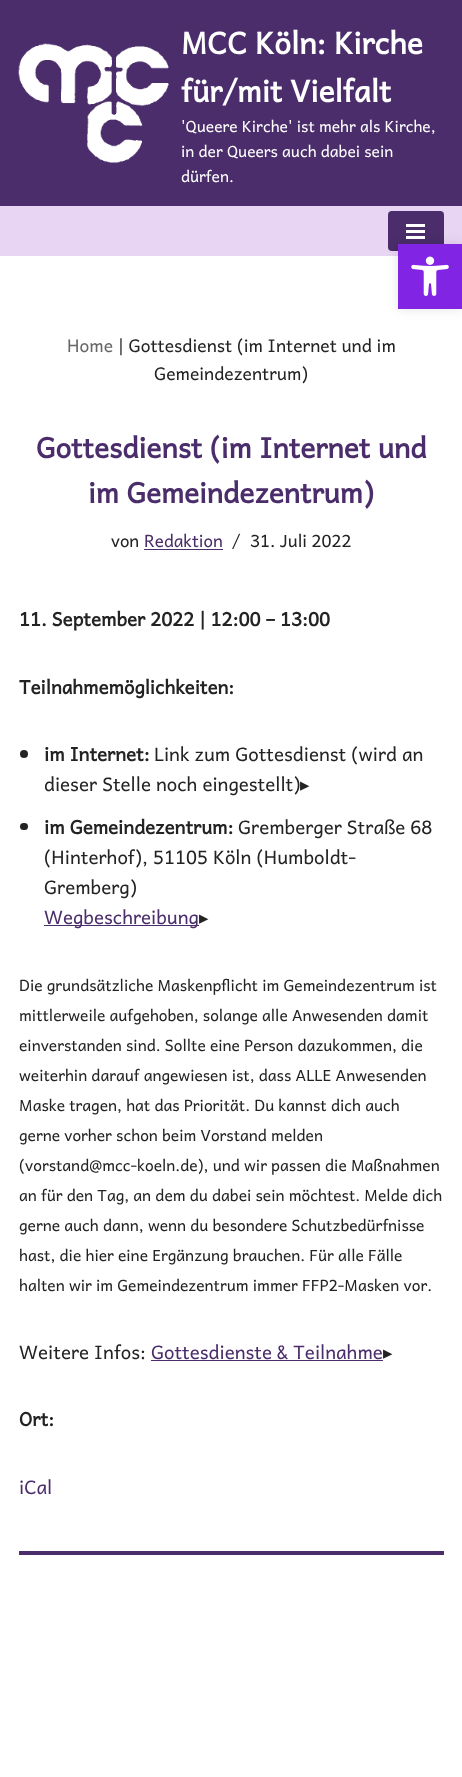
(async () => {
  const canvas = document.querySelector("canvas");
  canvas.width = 462;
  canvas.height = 1777;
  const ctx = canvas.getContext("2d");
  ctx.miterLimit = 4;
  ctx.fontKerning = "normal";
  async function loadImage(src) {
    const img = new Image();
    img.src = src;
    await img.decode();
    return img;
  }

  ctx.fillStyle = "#ffffff";
  ctx.fillRect(0, 0, 462, 1777);
  ctx.fillStyle = "#4a2d6a";
  ctx.fillRect(0, 0, 462, 206);
  ctx.drawImage(await loadImage("img/1.png"), 18, 43, 151, 120);
  ctx.fillStyle = "#e8d5f4";
  ctx.fillRect(0, 206, 462, 50);
  ctx.fillStyle = "#4a2d6a";
  ctx.beginPath();
  ctx.roundRect(388, 211, 56, 40, 4);
  ctx.fill();
  for (const [x, y, w, h, color] of [
    [406, 224, 19, 3, "#ffffff"],
    [406, 230, 19, 3, "#ffffff"],
    [406, 236, 19, 3, "#ffffff"],
    [144, 549, 79, 1, "#4a2d6a"],
  ]) {
    ctx.fillStyle = color;
    ctx.fillRect(x, y, w, h);
  }
  ctx.fillStyle = "#232323";
  ctx.beginPath();
  ctx.arc(24, 754, 4, 0, Math.PI * 2);
  ctx.fill();
  ctx.beginPath();
  ctx.roundRect(20, 823, 8, 7, 3.5);
  ctx.fill();
  for (const [x, y, w, h, color] of [
    [44, 925, 155, 1, "#4a2d6a"],
    [151, 1360, 232, 1, "#4a2d6a"],
    [19, 1551, 425, 4, "#4a2d6a"],
  ]) {
    ctx.fillStyle = color;
    ctx.fillRect(x, y, w, h);
  }
  ctx.fillStyle = "rgba(0, 0, 0, 0.1)";
  ctx.filter = "blur(6px)";
  ctx.beginPath();
  ctx.rect(398, 244, 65, 65);
  ctx.fill();
  ctx.filter = "none";
  ctx.fillStyle = "#8224e3";
  ctx.fillRect(398, 244, 64, 65);
  ctx.drawImage(await loadImage("img/2.png"), 411, 256, 38, 40);
  ctx.font = "bold 30px Andika";
  ctx.fillStyle = "#ffffff";
  ctx.fillText("MCC Köln: Kirche", 181, 54);
  ctx.fillText("für/mit Vielfalt", 181, 102);
  ctx.font = "15.6px Andika";
  for (const [text, x, y] of [
    ["'Queere Kirche' ist mehr als Kirche,", 181, 132],
    ["in der Queers auch dabei sein", 181, 157],
    ["dürfen.", 181, 182],
  ]) {
    ctx.fillText(text, x, y);
  }
  ctx.font = "17.5px Andika";
  ctx.fillStyle = "#676767";
  ctx.fillText("Home", 67, 352);
  ctx.fillStyle = "#232323";
  ctx.fillText("| Gottesdienst (im Internet und im", 118, 352);
  ctx.fillText("Gemeindezentrum)", 154, 380);
  ctx.font = "bold 28.1px Andika";
  ctx.fillStyle = "#4a2d6a";
  ctx.fillText("Gottesdienst (im Internet und", 36, 458);
  ctx.fillText("im Gemeindezentrum)", 88, 503);
  ctx.font = "17px Andika";
  ctx.fillStyle = "#232323";
  ctx.fillText("von", 111, 547);
  ctx.fillStyle = "#4a2d6a";
  ctx.fillText("Redaktion", 144, 547);
  ctx.fillStyle = "#232323";
  ctx.fillText("/", 232, 547);
  ctx.fillText("31. Juli 2022", 250, 547);
  ctx.font = "bold 18.75px Andika";
  for (const [text, x, y] of [
    ["11. September 2022 | 12:00 – 13:00", 19, 626],
    ["Teilnahmemöglichkeiten:", 19, 694],
    ["im Internet:", 44, 761],
  ]) {
    ctx.fillText(text, x, y);
  }
  ctx.font = "18.75px Andika";
  ctx.fillText("Link zum Gottesdienst (wird an", 154, 761);
  ctx.fillText("dieser Stelle noch eingestellt)", 44, 791);
  ctx.font = "18.75px DejaVu Sans";
  ctx.fillText("▸", 300, 791);
  ctx.font = "bold 18.75px Andika";
  ctx.fillText("im Gemeindezentrum:", 44, 834);
  ctx.font = "18.75px Andika";
  for (const [text, x, y] of [
    ["Gremberger Straße 68", 238, 834],
    ["(Hinterhof), 51105 Köln (Humboldt-", 44, 864],
    ["Gremberg)", 44, 894],
  ]) {
    ctx.fillText(text, x, y);
  }
  ctx.fillStyle = "#4a2d6a";
  ctx.fillText("Wegbeschreibung", 44, 924);
  ctx.font = "18.75px DejaVu Sans";
  ctx.fillStyle = "#232323";
  ctx.fillText("▸", 199, 924);
  ctx.font = "15.6px Andika";
  for (const [text, x, y] of [
    ["Die grundsätzliche Maskenpflicht im Gemeindezentrum ist", 19, 991],
    ["mittlerweile aufgehoben, solange alle Anwesenden damit", 19, 1021],
    ["einverstanden sind. Sollte eine Person dazukommen, die", 19, 1051],
    ["weiterhin darauf angewiesen ist, dass ALLE Anwesenden", 19, 1081],
    ["Maske tragen, hat das Priorität. Du kannst dich auch", 19, 1111],
    ["gerne vorher schon beim Vorstand melden", 19, 1141],
    ["(vorstand@mcc-koeln.de), und wir passen die Maßnahmen", 19, 1171],
    ["an für den Tag, an dem du dabei sein möchtest. Melde dich", 19, 1201],
    ["gerne auch dann, wenn du besondere Schutzbedürfnisse", 19, 1231],
    ["hast, die hier eine Ergänzung brauchen. Für alle Fälle", 19, 1261],
    ["halten wir im Gemeindezentrum immer FFP2-Masken vor.", 19, 1291],
  ]) {
    ctx.fillText(text, x, y);
  }
  ctx.font = "18.75px Andika";
  ctx.fillText("Weitere Infos:", 19, 1359);
  ctx.fillStyle = "#4a2d6a";
  ctx.fillText("Gottesdienste & Teilnahme", 151, 1359);
  ctx.font = "18.75px DejaVu Sans";
  ctx.fillStyle = "#232323";
  ctx.fillText("▸", 383, 1359);
  ctx.font = "bold 18.75px Andika";
  ctx.fillText("Ort:", 19, 1426);
  ctx.font = "18.75px Andika";
  ctx.fillStyle = "#4a2d6a";
  ctx.fillText("iCal", 19, 1494);
})();
